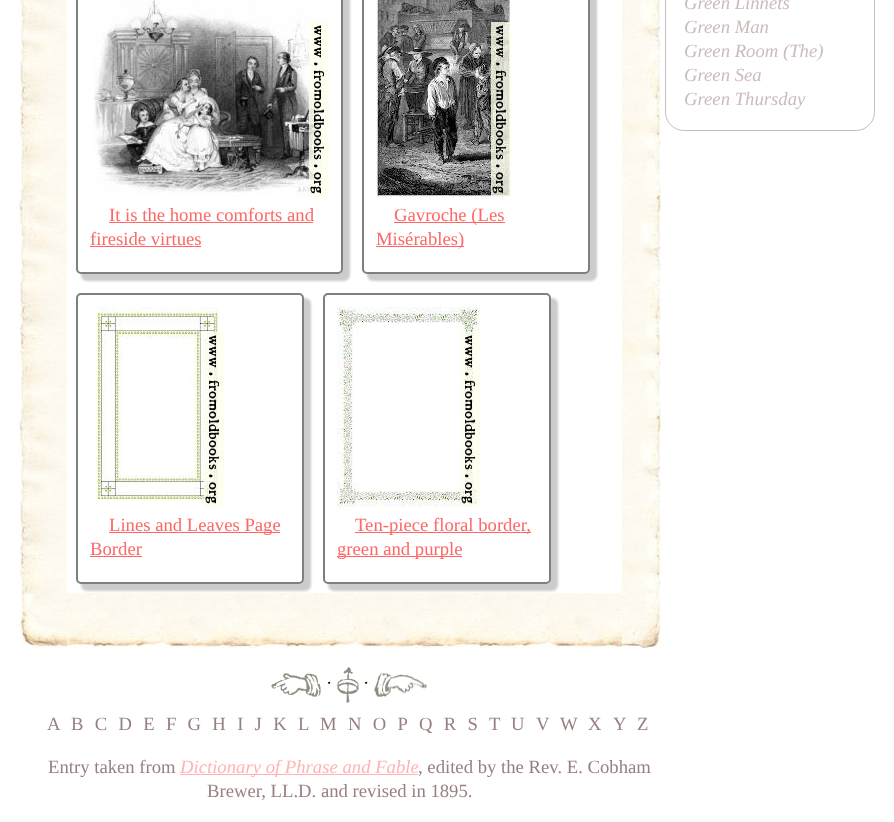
(async () => {
  const canvas = document.querySelector("canvas");
  canvas.width = 894;
  canvas.height = 822;
  const ctx = canvas.getContext("2d");
  ctx.miterLimit = 4;
  ctx.fontKerning = "normal";
  async function loadImage(src) {
    const img = new Image();
    img.src = src;
    await img.decode();
    return img;
  }

  ctx.fillStyle = "#ffffff";
  ctx.fillRect(0, 0, 894, 822);
  ctx.beginPath();
  ctx.roundRect(665.5, -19.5, 209, 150, 18.5);
  ctx.strokeStyle = "#ccbbbb";
  ctx.stroke();
  ctx.drawImage(await loadImage("img/1.png"), 67, 593, 555, 55);
  ctx.drawImage(await loadImage("img/2.png"), 19, 0, 48, 593);
  ctx.drawImage(await loadImage("img/3.png"), 622, 0, 39, 593);
  ctx.fillStyle = "rgba(0, 0, 0, 0.2)";
  ctx.filter = "blur(1px)";
  ctx.beginPath();
  ctx.roundRect(81, -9, 269, 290, 6);
  ctx.fill();
  ctx.filter = "none";
  ctx.fillStyle = "#ffffff";
  ctx.beginPath();
  ctx.roundRect(76, -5, 267, 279, 5);
  ctx.fill();
  ctx.beginPath();
  ctx.roundRect(77, -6, 265, 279, 4);
  ctx.strokeStyle = "rgba(0, 0, 0, 0.5)";
  ctx.lineWidth = 2;
  ctx.stroke();
  ctx.drawImage(await loadImage("img/4.png"), 93, 0, 236, 197);
  ctx.fillStyle = "#ff6666";
  ctx.fillRect(109, 222, 204, 1);
  ctx.fillRect(90, 246, 111, 1);
  ctx.fillStyle = "rgba(0, 0, 0, 0.2)";
  ctx.filter = "blur(1px)";
  ctx.beginPath();
  ctx.roundRect(367, -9, 230, 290, 6);
  ctx.fill();
  ctx.filter = "none";
  ctx.fillStyle = "#ffffff";
  ctx.beginPath();
  ctx.roundRect(362, -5, 228, 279, 5);
  ctx.fill();
  ctx.beginPath();
  ctx.roundRect(363, -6, 226, 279, 4);
  ctx.stroke();
  ctx.drawImage(await loadImage("img/5.png"), 376, 0, 135, 197);
  ctx.fillStyle = "#ff6666";
  ctx.fillRect(394, 222, 111, 1);
  ctx.fillRect(376, 246, 88, 1);
  ctx.fillStyle = "rgba(0, 0, 0, 0.2)";
  ctx.filter = "blur(1px)";
  ctx.beginPath();
  ctx.roundRect(81, 298, 230, 293, 6);
  ctx.fill();
  ctx.filter = "none";
  ctx.fillStyle = "#ffffff";
  ctx.beginPath();
  ctx.roundRect(76, 293, 228, 291, 5);
  ctx.fill();
  ctx.beginPath();
  ctx.roundRect(77, 294, 226, 289, 4);
  ctx.stroke();
  ctx.drawImage(await loadImage("img/6.png"), 90, 307, 134, 200);
  ctx.fillStyle = "#ff6666";
  ctx.fillRect(109, 532, 171, 1);
  ctx.fillRect(90, 556, 52, 1);
  ctx.fillStyle = "rgba(0, 0, 0, 0.2)";
  ctx.filter = "blur(1px)";
  ctx.beginPath();
  ctx.roundRect(328, 298, 230, 293, 6);
  ctx.fill();
  ctx.filter = "none";
  ctx.fillStyle = "#ffffff";
  ctx.beginPath();
  ctx.roundRect(323, 293, 228, 291, 5);
  ctx.fill();
  ctx.beginPath();
  ctx.roundRect(324, 294, 226, 289, 4);
  ctx.stroke();
  ctx.drawImage(await loadImage("img/7.png"), 337, 307, 143, 200);
  ctx.fillStyle = "#ff6666";
  ctx.fillRect(355, 532, 176, 1);
  ctx.fillRect(337, 556, 125, 1);
  ctx.drawImage(await loadImage("img/8.png"), 19, 593, 48, 55);
  ctx.drawImage(await loadImage("img/9.png"), 622, 593, 39, 55);
  ctx.drawImage(await loadImage("img/10.png"), 271, 673, 50, 24);
  ctx.drawImage(await loadImage("img/11.png"), 337, 667, 22, 36);
  ctx.drawImage(await loadImage("img/12.png"), 374, 673, 53, 24);
  ctx.fillStyle = "#ffb3b3";
  ctx.fillRect(180, 774, 238, 1);
  ctx.font = "italic 18.7px Liberation Serif";
  ctx.fillStyle = "#ccbbbb";
  for (const [text, x, y] of [
    ["Green Linnets", 684, 9],
    ["Green Man", 684, 33],
    ["Green Room (The)", 684, 57],
    ["Green Sea", 684, 81],
    ["Green Thursday", 684, 105],
  ]) {
    ctx.fillText(text, x, y);
  }
  ctx.font = "18.7px Liberation Serif";
  ctx.fillStyle = "#ff6666";
  for (const [text, x, y] of [
    ["It is the home comforts and", 109, 221],
    ["fireside virtues", 90, 245],
    ["Gavroche (Les", 394, 221],
    ["Misérables)", 376, 245],
    ["Lines and Leaves Page", 109, 531],
    ["Border", 90, 555],
    ["Ten-piece floral border,", 355, 531],
    ["green and purple", 337, 555],
  ]) {
    ctx.fillText(text, x, y);
  }
  ctx.fillStyle = "#330000";
  ctx.fillText("·", 326, 689);
  ctx.fillText("·", 363, 689);
  ctx.letterSpacing = "3.3px";
  ctx.fillStyle = "#998080";
  for (const [text, x, y] of [
    ["A", 47, 730],
    ["B C D E F G H I J K L", 71, 730],
    ["M N O P", 320, 730],
    ["Q R S", 419, 730],
    ["T", 489, 730],
    ["U", 511, 730],
    ["V", 536, 730],
    ["W", 560, 730],
    ["X", 588, 730],
    ["Y", 613, 730],
    ["Z", 637, 730],
  ]) {
    ctx.fillText(text, x, y);
  }
  ctx.letterSpacing = "0px";
  ctx.fillText("Entry taken from", 48, 773);
  ctx.font = "italic 18.7px Liberation Serif";
  ctx.fillStyle = "#ffb3b3";
  ctx.fillText("Dictionary of Phrase and Fable", 180, 773);
  ctx.font = "18.7px Liberation Serif";
  ctx.fillStyle = "#998080";
  ctx.fillText(", edited by the Rev. E. Cobham", 418, 773);
  ctx.fillText("Brewer, LL.D. and revised in 1895.", 207, 797);
})();
